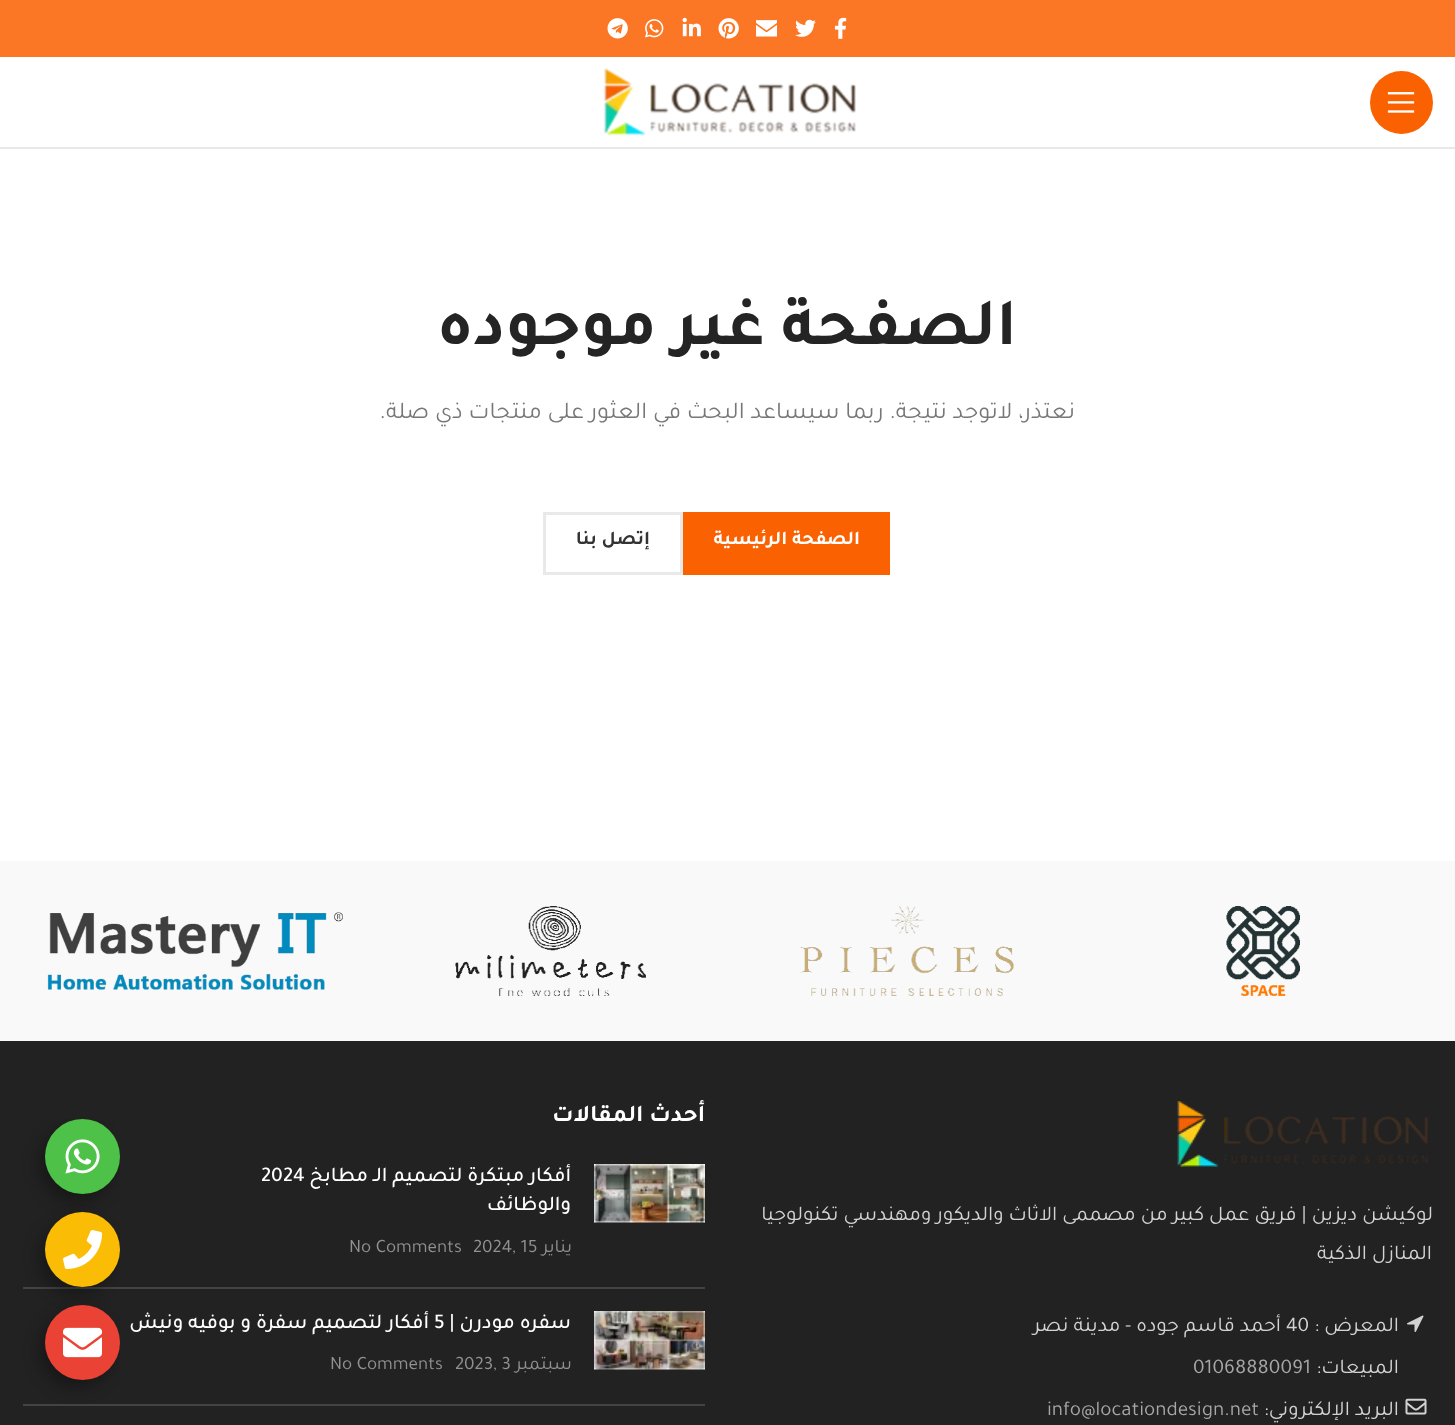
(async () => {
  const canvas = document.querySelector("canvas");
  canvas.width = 1455;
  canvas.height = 1425;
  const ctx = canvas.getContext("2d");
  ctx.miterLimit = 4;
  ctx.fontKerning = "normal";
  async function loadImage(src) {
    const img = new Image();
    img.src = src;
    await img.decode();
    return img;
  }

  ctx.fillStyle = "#ffffff";
  ctx.fillRect(0, 0, 1455, 1425);
  ctx.fillStyle = "#fb7725";
  ctx.fillRect(0, 0, 1455, 57);
  ctx.drawImage(await loadImage("img/1.png"), 834, 17, 13, 22);
  ctx.drawImage(await loadImage("img/2.png"), 795, 19, 21, 18);
  ctx.drawImage(await loadImage("img/3.png"), 756, 20, 21, 17);
  ctx.drawImage(await loadImage("img/4.png"), 718, 18, 21, 21);
  ctx.drawImage(await loadImage("img/5.png"), 682, 17, 19, 20);
  ctx.drawImage(await loadImage("img/6.png"), 645, 19, 19, 19);
  ctx.drawImage(await loadImage("img/7.png"), 607, 18, 21, 21);
  ctx.fillStyle = "#e8e8e8";
  ctx.fillRect(0, 147, 1455, 2);
  ctx.fillStyle = "#fa6101";
  ctx.beginPath();
  ctx.arc(1401.5, 102.5, 31.5, 0, Math.PI * 2);
  ctx.fill();
  ctx.drawImage(await loadImage("img/8.png"), 1387, 92, 28, 21);
  ctx.drawImage(await loadImage("img/9.png"), 603, 68, 253, 68);
  ctx.fillRect(683, 512, 207, 63);
  ctx.strokeStyle = "#e9e9e9";
  ctx.lineWidth = 3;
  ctx.strokeRect(544.5, 513.5, 137, 60);
  ctx.fillStyle = "#f9f9f9";
  ctx.fillRect(0, 861, 1455, 180);
  ctx.drawImage(await loadImage("img/10.png"), 1226, 906, 74, 90);
  ctx.drawImage(await loadImage("img/11.png"), 800, 906, 214, 90);
  ctx.drawImage(await loadImage("img/12.png"), 455, 906, 191, 90);
  ctx.drawImage(await loadImage("img/13.png"), 47, 912, 296, 78);
  ctx.fillStyle = "#222222";
  ctx.fillRect(0, 1041, 1455, 384);
  ctx.drawImage(await loadImage("img/14.png"), 1177, 1101, 251, 66);
  ctx.drawImage(await loadImage("img/15.png"), 1407, 1315, 17, 17);
  ctx.drawImage(await loadImage("img/16.png"), 1405, 1398, 22, 17);
  ctx.fillStyle = "#434343";
  ctx.fillRect(23, 1287, 682, 2);
  ctx.drawImage(await loadImage("img/17.png"), 594, 1164, 111, 59);
  ctx.fillRect(23, 1404, 682, 2);
  ctx.drawImage(await loadImage("img/18.png"), 594, 1311, 111, 59);
  ctx.save();
  ctx.beginPath();
  ctx.rect(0, 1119, 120, 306);
  ctx.clip();
  ctx.fillStyle = "rgba(0, 0, 0, 0.3)";
  ctx.filter = "blur(8px)";
  ctx.beginPath();
  ctx.roundRect(39, 1127, 75, 75, 37.5);
  ctx.fill();
  ctx.filter = "none";
  ctx.restore();
  ctx.fillStyle = "#4ec248";
  ctx.beginPath();
  ctx.arc(82.5, 1156.5, 37.5, 0, Math.PI * 2);
  ctx.fill();
  ctx.drawImage(await loadImage("img/19.png"), 65, 1139, 35, 35);
  ctx.save();
  ctx.beginPath();
  ctx.rect(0, 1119, 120, 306);
  ctx.clip();
  ctx.fillStyle = "rgba(0, 0, 0, 0.3)";
  ctx.filter = "blur(8px)";
  ctx.beginPath();
  ctx.roundRect(39, 1220, 75, 75, 37.5);
  ctx.fill();
  ctx.filter = "none";
  ctx.restore();
  ctx.fillStyle = "#fbbc05";
  ctx.beginPath();
  ctx.arc(82.5, 1249.5, 37.5, 0, Math.PI * 2);
  ctx.fill();
  ctx.drawImage(await loadImage("img/20.png"), 63, 1230, 39, 39);
  ctx.save();
  ctx.beginPath();
  ctx.rect(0, 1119, 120, 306);
  ctx.clip();
  ctx.fillStyle = "rgba(0, 0, 0, 0.3)";
  ctx.filter = "blur(8px)";
  ctx.beginPath();
  ctx.roundRect(39, 1313, 75, 75, 37.5);
  ctx.fill();
  ctx.filter = "none";
  ctx.restore();
  ctx.fillStyle = "#ea4335";
  ctx.beginPath();
  ctx.arc(82.5, 1342.5, 37.5, 0, Math.PI * 2);
  ctx.fill();
  ctx.drawImage(await loadImage("img/21.png"), 63, 1327, 39, 31);
  ctx.direction = "rtl";
  ctx.font = "bold 67.5px Tajawal";
  ctx.fillStyle = "#242424";
  ctx.fillText("الصفحة غير موجوده", 1017, 344);
  ctx.font = "24px Tajawal";
  ctx.fillStyle = "#777777";
  ctx.fillText("نعتذر، لاتوجد نتيجة. ربما سيساعد البحث في العثور على منتجات ذي صلة.", 1075, 418);
  ctx.font = "bold 19.5px Tajawal";
  ctx.fillStyle = "#ffffff";
  ctx.fillText("الصفحة الرئيسية", 860, 544);
  ctx.fillStyle = "#333333";
  ctx.fillText("إتصل بنا", 650, 544);
  ctx.font = "21px Tajawal";
  ctx.fillStyle = "#d3d3d3";
  for (const [text, x, y] of [
    ["لوكيشن ديزين | فريق عمل كبير من مصممى الاثاث والديكور ومهندسي تكنولوجيا", 1433, 1220],
    ["المنازل الذكية", 1432, 1259],
    ["المعرض :", 1399, 1331],
  ]) {
    ctx.fillText(text, x, y);
  }
  ctx.direction = "ltr";
  ctx.fillText("40", 1286, 1331);
  ctx.direction = "rtl";
  ctx.fillText("أحمد قاسم جوده - مدينة نصر", 1281, 1331);
  ctx.fillText("المبيعات:", 1399, 1373);
  ctx.direction = "ltr";
  ctx.fillStyle = "#a7a7a7";
  ctx.fillText("01068880091", 1193, 1373);
  ctx.direction = "rtl";
  ctx.fillStyle = "#d3d3d3";
  ctx.fillText("البريد الإلكتروني:", 1399, 1415);
  ctx.direction = "ltr";
  ctx.fillStyle = "#a7a7a7";
  ctx.fillText("info@locationdesign.net", 1047, 1415);
  ctx.direction = "rtl";
  ctx.font = "bold 24px Tajawal";
  ctx.fillStyle = "#ffffff";
  ctx.fillText("أحدث المقالات", 705, 1121);
  ctx.font = "500 21px Tajawal";
  ctx.fillText("أفكار مبتكرة لتصميم الـ مطابخ", 571, 1181);
  ctx.direction = "ltr";
  ctx.fillText("2024", 261, 1181);
  ctx.direction = "rtl";
  ctx.fillText("والوظائف", 571, 1210);
  ctx.font = "19px Tajawal";
  ctx.fillStyle = "#919191";
  ctx.fillText("يناير", 572, 1252);
  ctx.direction = "ltr";
  ctx.fillText("2024, 15", 473, 1252);
  ctx.fillText("No Comments", 349, 1252);
  ctx.direction = "rtl";
  ctx.font = "500 21px Tajawal";
  ctx.fillStyle = "#ffffff";
  ctx.fillText("سفره مودرن |", 571, 1328);
  ctx.direction = "ltr";
  ctx.fillText("5", 434, 1328);
  ctx.direction = "rtl";
  ctx.fillText("أفكار لتصميم سفرة و بوفيه ونيش", 429, 1328);
  ctx.font = "19px Tajawal";
  ctx.fillStyle = "#919191";
  ctx.fillText("سبتمبر", 572, 1369);
  ctx.direction = "ltr";
  ctx.fillText("2023, 3", 455, 1369);
  ctx.fillText("No Comments", 330, 1369);
})();
